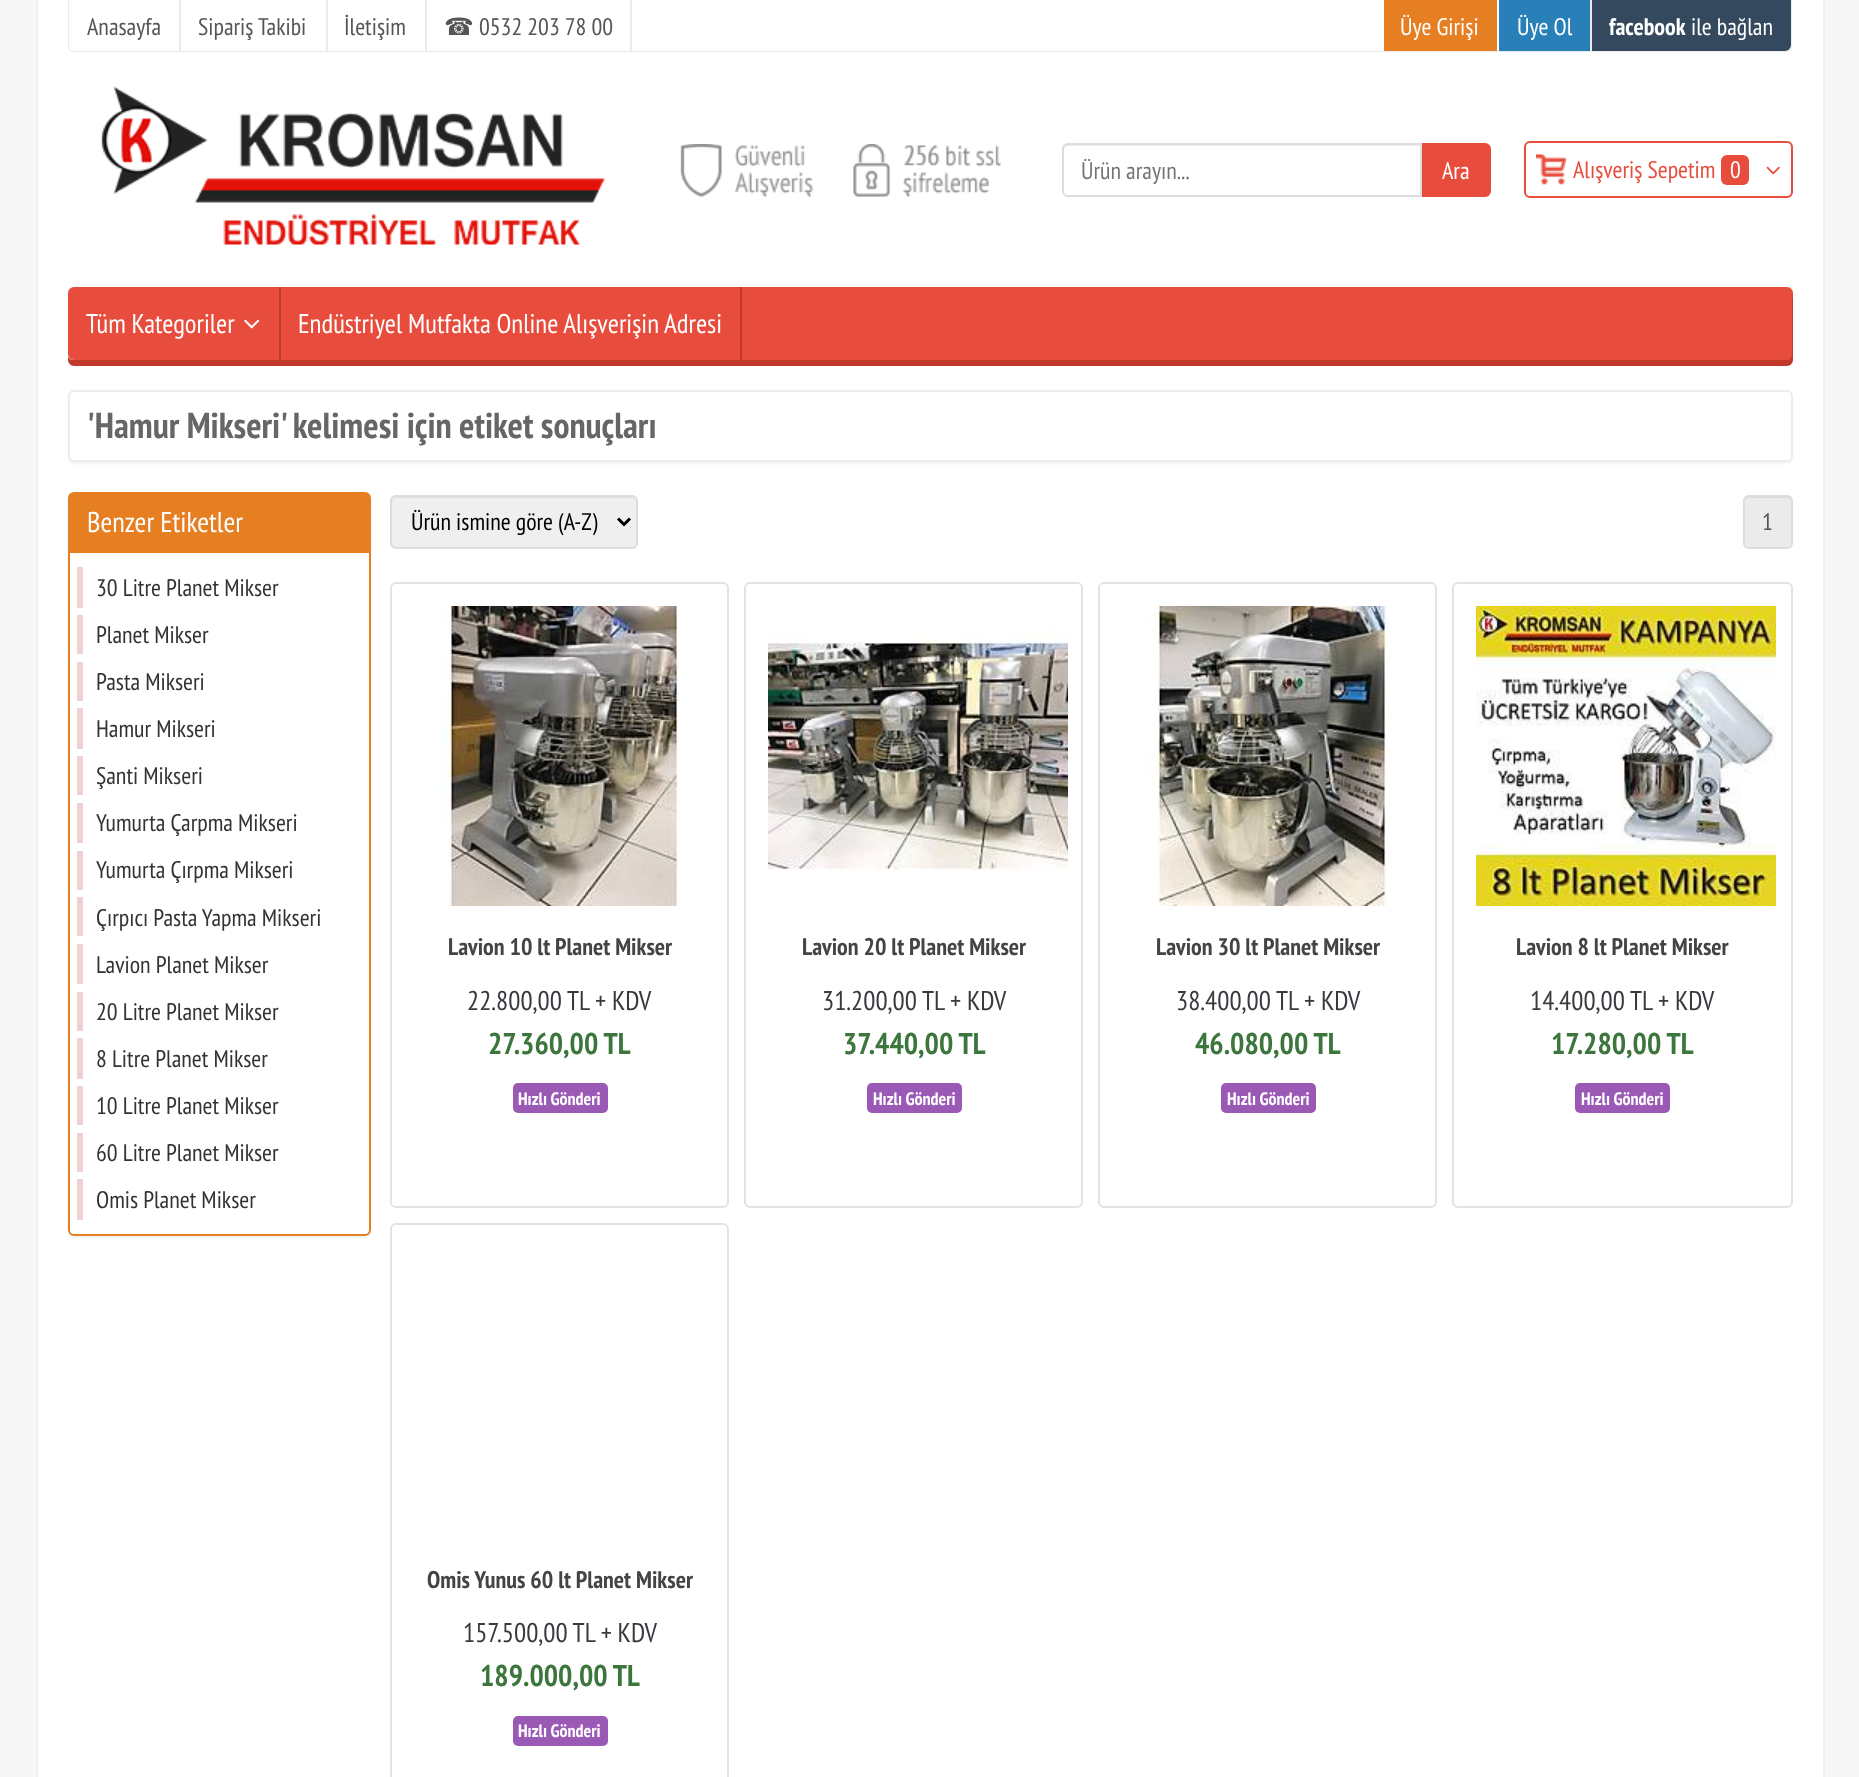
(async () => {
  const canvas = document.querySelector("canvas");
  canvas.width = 1859;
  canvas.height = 1777;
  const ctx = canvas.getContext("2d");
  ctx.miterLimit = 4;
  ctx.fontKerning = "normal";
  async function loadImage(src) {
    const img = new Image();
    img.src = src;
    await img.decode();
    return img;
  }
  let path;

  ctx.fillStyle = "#f7f7f7";
  ctx.fillRect(0, 0, 1859, 1777);
  for (const [x, y, w, h, color] of [
    [38, 0, 1785, 1777, "#ffffff"],
    [1823, 0, 2, 1777, "#f0f0f0"],
    [36, 0, 2, 1777, "#f0f0f0"],
  ]) {
    ctx.fillStyle = color;
    ctx.fillRect(x, y, w, h);
  }
  ctx.fillStyle = "#ebebeb";
  path = new Path2D("M68 0H1792V46C1792 50 1790 52 1786 52H74C70 52 68 50 68 46ZM69 0H1791V46C1791 49 1789 51 1786 51H74C71 51 69 49 69 46Z");
  ctx.fill(path, "evenodd");
  for (const [x, y, w, h, color] of [
    [179, 0, 2, 51, "#ebebeb"],
    [326, 0, 2, 51, "#ebebeb"],
    [425, 0, 2, 51, "#ebebeb"],
    [630, 0, 2, 51, "#ebebeb"],
    [1384, 0, 113, 51, "#e67e22"],
    [1499, 0, 91, 51, "#2980b9"],
  ]) {
    ctx.fillStyle = color;
    ctx.fillRect(x, y, w, h);
  }
  ctx.fillStyle = "#34495e";
  ctx.beginPath();
  ctx.roundRect(1590, 0, 201, 51, [0, 0, 6, 0]);
  ctx.fill();
  ctx.fillStyle = "#ebebeb";
  ctx.fillRect(1590, 0, 2, 51);
  ctx.drawImage(await loadImage("img/1.png"), 101, 86, 504, 159);
  ctx.drawImage(await loadImage("img/2.png"), 680, 144, 321, 53);
  ctx.fillStyle = "#ececec";
  path = new Path2D("M1068 146H1420V195H1421V144H1069C1066 144 1064 146 1064 149V150C1064 148 1066 146 1068 146Z");
  ctx.fill(path);
  ctx.beginPath();
  ctx.roundRect(1063, 144, 358, 52, [5, 0, 0, 5]);
  ctx.strokeStyle = "#dddddd";
  ctx.lineWidth = 2;
  ctx.stroke();
  ctx.fillStyle = "#e74c3c";
  ctx.beginPath();
  ctx.roundRect(1422, 143, 69, 54, [0, 6, 6, 0]);
  ctx.fill();
  ctx.drawImage(await loadImage("img/3.png"), 1536, 154, 30, 31);
  ctx.beginPath();
  ctx.roundRect(1525, 142, 267, 55, 5);
  ctx.strokeStyle = "#e74c3c";
  ctx.stroke();
  ctx.beginPath();
  ctx.roundRect(1721, 155, 28, 30, 6);
  ctx.fill();
  ctx.drawImage(await loadImage("img/4.png"), 1766, 166, 14, 9);
  ctx.beginPath();
  ctx.roundRect(68, 287, 1725, 73, 6);
  ctx.fill();
  ctx.fillStyle = "#c0392b";
  path = new Path2D("M68 356V360C68 363 71 366 74 366H1787C1790 366 1793 363 1793 360V299L1792 297V354C1792 357 1790 360 1786 360H74C71 360 69 359 68 356Z");
  ctx.fill(path);
  ctx.fillRect(279, 287, 2, 73);
  ctx.drawImage(await loadImage("img/5.png"), 244, 319, 16, 10);
  ctx.fillRect(740, 287, 2, 73);
  ctx.save();
  path = new Path2D("M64 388H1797V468H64ZM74 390H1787C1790.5 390 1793 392.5 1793 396V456C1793 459.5 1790.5 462 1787 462H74C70.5 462 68 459.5 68 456V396C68 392.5 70.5 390 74 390Z");
  ctx.clip(path, "evenodd");
  ctx.fillStyle = "rgba(0, 0, 0, 0.05)";
  ctx.filter = "blur(1px)";
  ctx.beginPath();
  ctx.roundRect(68, 392, 1725, 72, 6);
  ctx.fill();
  ctx.filter = "none";
  ctx.restore();
  ctx.beginPath();
  ctx.roundRect(69, 391, 1723, 70, 5);
  ctx.strokeStyle = "#ececec";
  ctx.stroke();
  ctx.save();
  path = new Path2D("M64 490H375V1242H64ZM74 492H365C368.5 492 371 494.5 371 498V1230C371 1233.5 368.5 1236 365 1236H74C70.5 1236 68 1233.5 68 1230V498C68 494.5 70.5 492 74 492Z");
  ctx.clip(path, "evenodd");
  ctx.fillStyle = "rgba(0, 0, 0, 0.05)";
  ctx.filter = "blur(1px)";
  ctx.beginPath();
  ctx.roundRect(68, 494, 303, 744, 6);
  ctx.fill();
  ctx.filter = "none";
  ctx.restore();
  ctx.beginPath();
  ctx.roundRect(69, 493, 301, 742, 5);
  ctx.strokeStyle = "#e67e22";
  ctx.stroke();
  for (const [x, y, w, h, color] of [
    [69, 494, 300, 59, "#e67e22"],
    [77, 567, 6, 41, "#f1d1d1"],
    [77, 615, 6, 39, "#f1d1d1"],
    [77, 662, 6, 39, "#f1d1d1"],
    [77, 708, 6, 41, "#f1d1d1"],
    [77, 756, 6, 39, "#f1d1d1"],
    [77, 803, 6, 40, "#f1d1d1"],
    [77, 851, 6, 39, "#f1d1d1"],
    [77, 897, 6, 39, "#f1d1d1"],
    [77, 944, 6, 40, "#f1d1d1"],
    [77, 992, 6, 39, "#f1d1d1"],
    [77, 1038, 6, 41, "#f1d1d1"],
    [77, 1086, 6, 39, "#f1d1d1"],
    [77, 1133, 6, 39, "#f1d1d1"],
    [77, 1179, 6, 41, "#f1d1d1"],
  ]) {
    ctx.fillStyle = color;
    ctx.fillRect(x, y, w, h);
  }
  ctx.fillStyle = "#efefef";
  ctx.beginPath();
  ctx.roundRect(390, 495, 248, 54, 6);
  ctx.fill();
  ctx.fillStyle = "#dddddd";
  path = new Path2D("M396 498H632C634 498 636 500 636 502C636 499 634 497 631 497H397C394 497 392 499 392 502C392 500 394 498 396 498Z");
  ctx.fill(path);
  ctx.beginPath();
  ctx.roundRect(391, 496, 246, 52, 5);
  ctx.strokeStyle = "#dddddd";
  ctx.stroke();
  path = new Path2D("M618 518.5L624 524.5L630 518.5");
  ctx.strokeStyle = "#000000";
  ctx.lineWidth = 3;
  ctx.stroke(path);
  ctx.fillStyle = "#ebebeb";
  ctx.beginPath();
  ctx.roundRect(1743, 495, 50, 54, 6);
  ctx.fill();
  ctx.fillStyle = "#d9d9d9";
  path = new Path2D("M1749 498H1786C1789 498 1791 500 1791 502C1791 499 1789 497 1786 497H1750C1748 497 1747 498 1746 499Z");
  ctx.fill(path);
  ctx.beginPath();
  ctx.roundRect(1744, 496, 48, 52, 5);
  ctx.strokeStyle = "#dddddd";
  ctx.lineWidth = 2;
  ctx.stroke();
  ctx.beginPath();
  ctx.roundRect(391, 583, 337, 624, 5);
  ctx.strokeStyle = "#e3e3e3";
  ctx.stroke();
  ctx.drawImage(await loadImage("img/6.png"), 437, 606, 242, 300);
  ctx.fillStyle = "#9b59b6";
  ctx.beginPath();
  ctx.roundRect(513, 1083, 95, 30, 5);
  ctx.fill();
  ctx.beginPath();
  ctx.roundRect(745, 583, 337, 624, 5);
  ctx.stroke();
  ctx.drawImage(await loadImage("img/7.png"), 768, 630, 300, 241);
  ctx.beginPath();
  ctx.roundRect(867, 1083, 95, 30, 5);
  ctx.fill();
  ctx.beginPath();
  ctx.roundRect(1099, 583, 337, 624, 5);
  ctx.stroke();
  ctx.drawImage(await loadImage("img/8.png"), 1146, 606, 241, 300);
  ctx.beginPath();
  ctx.roundRect(1221, 1083, 95, 30, 5);
  ctx.fill();
  ctx.beginPath();
  ctx.roundRect(1453, 583, 339, 624, 5);
  ctx.stroke();
  ctx.drawImage(await loadImage("img/9.png"), 1476, 606, 300, 300);
  ctx.beginPath();
  ctx.roundRect(1575, 1083, 95, 30, 5);
  ctx.fill();
  ctx.beginPath();
  ctx.roundRect(391, 1224, 337, 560, 5);
  ctx.stroke();
  ctx.beginPath();
  ctx.roundRect(513, 1716, 95, 30, 5);
  ctx.fill();
  ctx.font = "24px PT Sans Narrow";
  ctx.fillStyle = "#555555";
  for (const [text, x, y] of [
    ["Anasayfa", 87, 35],
    ["Sipariş Takibi", 198, 35],
    ["İletişim", 344, 35],
  ]) {
    ctx.fillText(text, x, y);
  }
  ctx.font = "24px DejaVu Sans";
  ctx.fillText("☎", 444, 35);
  ctx.font = "24px PT Sans Narrow";
  ctx.fillText("0532 203 78 00", 479, 35);
  ctx.fillStyle = "#ffffff";
  ctx.fillText("Üye Girişi", 1400, 35);
  ctx.fillText("Üye Ol", 1517, 35);
  ctx.font = "bold 24px PT Sans Narrow";
  ctx.fillText("facebook", 1609, 35);
  ctx.font = "24px PT Sans Narrow";
  ctx.fillText("ile bağlan", 1691, 35);
  ctx.fillStyle = "#757575";
  ctx.fillText("Ürün arayın...", 1081, 179);
  ctx.fillStyle = "#ffffff";
  ctx.fillText("Ara", 1442, 179);
  ctx.fillStyle = "#e74c3c";
  ctx.fillText("Alışveriş Sepetim", 1573, 178);
  ctx.fillStyle = "#ffffff";
  ctx.fillText("0", 1730, 178);
  ctx.font = "27px PT Sans Narrow";
  ctx.fillText("Tüm Kategoriler", 86, 333);
  ctx.fillText("Endüstriyel Mutfakta Online Alışverişin Adresi", 298, 333);
  ctx.font = "bold 36px PT Sans Narrow";
  ctx.fillStyle = "#666666";
  ctx.fillText("'Hamur Mikseri' kelimesi için etiket sonuçları", 87, 438);
  ctx.font = "28.5px PT Sans Narrow";
  ctx.fillStyle = "#ffffff";
  ctx.fillText("Benzer Etiketler", 87, 532);
  ctx.font = "24px PT Sans Narrow";
  ctx.fillStyle = "#333333";
  for (const [text, x, y] of [
    ["30 Litre Planet Mikser", 96, 596],
    ["Planet Mikser", 96, 643],
    ["Pasta Mikseri", 96, 690],
    ["Hamur Mikseri", 96, 737],
    ["Şanti Mikseri", 96, 784],
    ["Yumurta Çarpma Mikseri", 96, 831],
    ["Yumurta Çırpma Mikseri", 96, 878],
    ["Çırpıcı Pasta Yapma Mikseri", 96, 926],
    ["Lavion Planet Mikser", 96, 973],
    ["20 Litre Planet Mikser", 96, 1020],
    ["8 Litre Planet Mikser", 96, 1067],
    ["10 Litre Planet Mikser", 96, 1114],
    ["60 Litre Planet Mikser", 96, 1161],
    ["Omis Planet Mikser", 96, 1208],
  ]) {
    ctx.fillText(text, x, y);
  }
  ctx.fillStyle = "#000000";
  ctx.fillText("Ürün ismine göre (A-Z)", 411, 530);
  ctx.fillStyle = "#555555";
  ctx.fillText("1", 1762, 530);
  ctx.font = "bold 24px PT Sans Narrow";
  ctx.fillStyle = "#444444";
  ctx.fillText("Lavion 10 lt Planet Mikser", 448, 955);
  ctx.font = "27px PT Sans Narrow";
  ctx.fillStyle = "#373a3f";
  ctx.fillText("22.800,00 TL + KDV", 467, 1010);
  ctx.font = "bold 30px PT Sans Narrow";
  ctx.fillStyle = "#3c763d";
  ctx.fillText("27.360,00 TL", 488, 1054);
  ctx.font = "bold 18px PT Sans Narrow";
  ctx.fillStyle = "#ffffff";
  ctx.fillText("Hızlı Gönderi", 518, 1105);
  ctx.font = "bold 24px PT Sans Narrow";
  ctx.fillStyle = "#444444";
  ctx.fillText("Lavion 20 lt Planet Mikser", 802, 955);
  ctx.font = "27px PT Sans Narrow";
  ctx.fillStyle = "#373a3f";
  ctx.fillText("31.200,00 TL + KDV", 822, 1010);
  ctx.font = "bold 30px PT Sans Narrow";
  ctx.fillStyle = "#3c763d";
  ctx.fillText("37.440,00 TL", 843, 1054);
  ctx.font = "bold 18px PT Sans Narrow";
  ctx.fillStyle = "#ffffff";
  ctx.fillText("Hızlı Gönderi", 873, 1105);
  ctx.font = "bold 24px PT Sans Narrow";
  ctx.fillStyle = "#444444";
  ctx.fillText("Lavion 30 lt Planet Mikser", 1156, 955);
  ctx.font = "27px PT Sans Narrow";
  ctx.fillStyle = "#373a3f";
  ctx.fillText("38.400,00 TL + KDV", 1176, 1010);
  ctx.font = "bold 30px PT Sans Narrow";
  ctx.fillStyle = "#3c763d";
  ctx.fillText("46.080,00 TL", 1195, 1054);
  ctx.font = "bold 18px PT Sans Narrow";
  ctx.fillStyle = "#ffffff";
  ctx.fillText("Hızlı Gönderi", 1227, 1105);
  ctx.font = "bold 24px PT Sans Narrow";
  ctx.fillStyle = "#444444";
  ctx.fillText("Lavion 8 lt Planet Mikser", 1516, 955);
  ctx.font = "27px PT Sans Narrow";
  ctx.fillStyle = "#373a3f";
  ctx.fillText("14.400,00 TL + KDV", 1530, 1010);
  ctx.font = "bold 30px PT Sans Narrow";
  ctx.fillStyle = "#3c763d";
  ctx.fillText("17.280,00 TL", 1551, 1054);
  ctx.font = "bold 18px PT Sans Narrow";
  ctx.fillStyle = "#ffffff";
  ctx.fillText("Hızlı Gönderi", 1581, 1105);
  ctx.font = "bold 24px PT Sans Narrow";
  ctx.fillStyle = "#444444";
  ctx.fillText("Omis Yunus 60 lt Planet Mikser", 427, 1588);
  ctx.font = "27px PT Sans Narrow";
  ctx.fillStyle = "#373a3f";
  ctx.fillText("157.500,00 TL + KDV", 463, 1642);
  ctx.font = "bold 30px PT Sans Narrow";
  ctx.fillStyle = "#3c763d";
  ctx.fillText("189.000,00 TL", 480, 1686);
  ctx.font = "bold 18px PT Sans Narrow";
  ctx.fillStyle = "#ffffff";
  ctx.fillText("Hızlı Gönderi", 518, 1737);
})();
